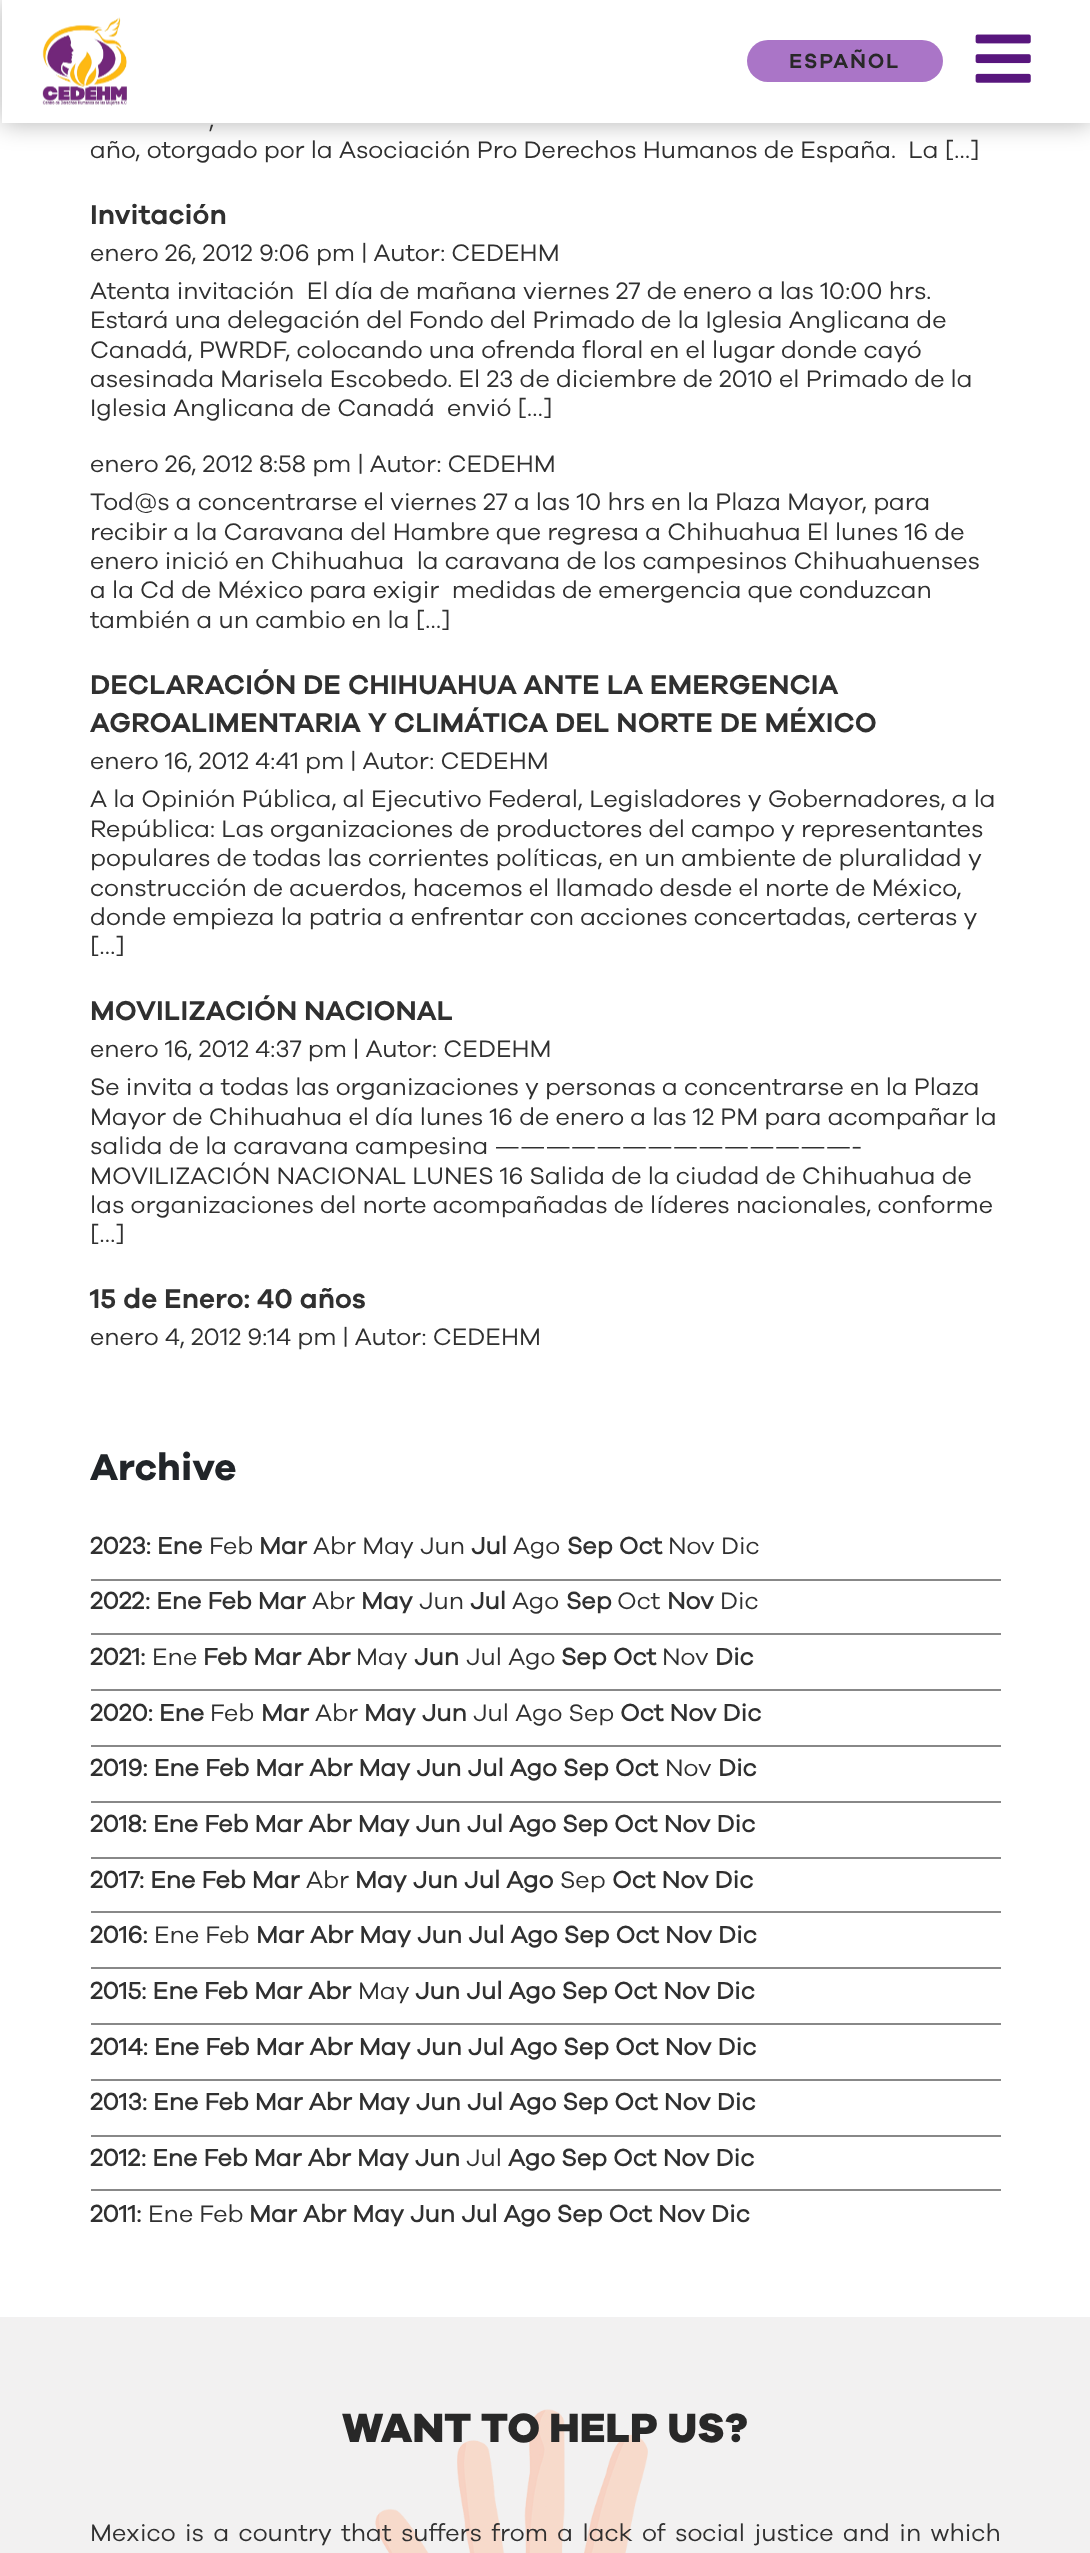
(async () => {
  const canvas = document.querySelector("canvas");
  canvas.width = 1090;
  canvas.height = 2553;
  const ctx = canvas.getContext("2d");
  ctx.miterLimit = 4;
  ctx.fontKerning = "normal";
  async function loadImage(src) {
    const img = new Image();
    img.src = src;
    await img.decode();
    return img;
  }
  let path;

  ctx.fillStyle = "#ffffff";
  ctx.fillRect(0, 0, 1090, 2553);
  ctx.save();
  path = new Path2D("M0 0H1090V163H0ZM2 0H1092V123H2Z");
  ctx.clip(path, "evenodd");
  ctx.fillStyle = "rgba(0, 0, 0, 0.3)";
  ctx.filter = "blur(13px)";
  ctx.beginPath();
  ctx.rect(2, 0, 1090, 123);
  ctx.fill();
  ctx.filter = "none";
  ctx.restore();
  ctx.fillRect(2, 122, 1088, 1);
  ctx.drawImage(await loadImage("img/1.png"), 42, 17, 85, 89);
  ctx.fillStyle = "#aa75c7";
  ctx.beginPath();
  ctx.roundRect(747, 40, 196, 42, 21);
  ctx.fill();
  ctx.drawImage(await loadImage("img/2.png"), 975, 34, 56, 49);
  for (const [x, y, w, h, color] of [
    [91, 1579, 910, 2, "#888888"],
    [91, 1633, 910, 2, "#888888"],
    [91, 1689, 910, 2, "#888888"],
    [91, 1745, 910, 2, "#888888"],
    [91, 1801, 910, 2, "#888888"],
    [91, 1857, 910, 2, "#888888"],
    [91, 1911, 910, 2, "#888888"],
    [91, 1967, 910, 2, "#888888"],
    [91, 2023, 910, 2, "#888888"],
    [91, 2079, 910, 2, "#888888"],
    [91, 2135, 910, 2, "#888888"],
    [91, 2189, 910, 2, "#888888"],
    [0, 2317, 1090, 236, "#f2f1f1"],
  ]) {
    ctx.fillStyle = color;
    ctx.fillRect(x, y, w, h);
  }
  ctx.drawImage(await loadImage("img/3.png"), 375, 2409, 273, 144);
  ctx.letterSpacing = "1.75px";
  ctx.font = "600 21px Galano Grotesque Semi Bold";
  ctx.fillStyle = "#282828";
  ctx.fillText("ESPAÑOL", 789, 68);
  ctx.letterSpacing = "0px";
  ctx.font = "24.5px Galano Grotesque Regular";
  ctx.fillStyle = "#303030";
  ctx.fillText(",", 209, 128);
  ctx.fillText("año, otorgado por la Asociación Pro Derechos Humanos de España.  La […]", 90, 158);
  ctx.font = "600 28px Galano Grotesque Semi Bold";
  ctx.fillText("Invitación", 90, 224);
  ctx.font = "24.5px Galano Grotesque Regular";
  for (const [text, x, y] of [
    ["enero 26, 2012 9:06 pm | Autor: CEDEHM", 90, 261],
    ["Atenta invitación  El día de mañana viernes 27 de enero a las 10:00 hrs.", 90, 299],
    ["Estará una delegación del Fondo del Primado de la Iglesia Anglicana de", 90, 328],
    ["Canadá, PWRDF, colocando una ofrenda floral en el lugar donde cayó", 90, 358],
    ["asesinada Marisela Escobedo. El 23 de diciembre de 2010 el Primado de la", 90, 387],
    ["Iglesia Anglicana de Canadá  envió […]", 90, 416],
    ["enero 26, 2012 8:58 pm | Autor: CEDEHM", 90, 472],
    ["Tod@s a concentrarse el viernes 27 a las 10 hrs en la Plaza Mayor, para", 90, 510],
    ["recibir a la Caravana del Hambre que regresa a Chihuahua El lunes 16 de", 90, 540],
    ["enero inició en Chihuahua  la caravana de los campesinos Chihuahuenses", 90, 569],
    ["a la Cd de México para exigir  medidas de emergencia que conduzcan", 90, 598],
    ["también a un cambio en la […]", 90, 628],
  ]) {
    ctx.fillText(text, x, y);
  }
  ctx.font = "600 28px Galano Grotesque Semi Bold";
  ctx.fillText("DECLARACIÓN DE CHIHUAHUA ANTE LA EMERGENCIA", 90, 694);
  ctx.fillText("AGROALIMENTARIA Y CLIMÁTICA DEL NORTE DE MÉXICO", 90, 732);
  ctx.font = "24.5px Galano Grotesque Regular";
  for (const [text, x, y] of [
    ["enero 16, 2012 4:41 pm | Autor: CEDEHM", 90, 769],
    ["A la Opinión Pública, al Ejecutivo Federal, Legisladores y Gobernadores, a la", 90, 807],
    ["República: Las organizaciones de productores del campo y representantes", 90, 837],
    ["populares de todas las corrientes políticas, en un ambiente de pluralidad y", 90, 866],
    ["construcción de acuerdos, hacemos el llamado desde el norte de México,", 90, 896],
    ["donde empieza la patria a enfrentar con acciones concertadas, certeras y", 90, 925],
    ["[…]", 90, 954],
  ]) {
    ctx.fillText(text, x, y);
  }
  ctx.font = "600 28px Galano Grotesque Semi Bold";
  ctx.fillText("MOVILIZACIÓN NACIONAL", 90, 1020);
  ctx.font = "24.5px Galano Grotesque Regular";
  for (const [text, x, y] of [
    ["enero 16, 2012 4:37 pm | Autor: CEDEHM", 90, 1057],
    ["Se invita a todas las organizaciones y personas a concentrarse en la Plaza", 90, 1095],
    ["Mayor de Chihuahua el día lunes 16 de enero a las 12 PM para acompañar la", 90, 1125],
    ["salida de la caravana campesina ——————————————-", 90, 1154],
    ["MOVILIZACIÓN NACIONAL LUNES 16 Salida de la ciudad de Chihuahua de", 90, 1184],
    ["las organizaciones del norte acompañadas de líderes nacionales, conforme", 90, 1213],
    ["[…]", 90, 1242],
  ]) {
    ctx.fillText(text, x, y);
  }
  ctx.font = "600 28px Galano Grotesque Semi Bold";
  ctx.fillText("15 de Enero: 40 años", 90, 1308);
  ctx.font = "24.5px Galano Grotesque Regular";
  ctx.fillText("enero 4, 2012 9:14 pm | Autor: CEDEHM", 90, 1345);
  ctx.font = "bold 38.5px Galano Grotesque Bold";
  ctx.fillStyle = "#212529";
  ctx.fillText("Archive", 90, 1480);
  ctx.font = "bold 24.5px Galano Grotesque Regular";
  ctx.fillStyle = "#303030";
  ctx.fillText("2023: Ene", 90, 1554);
  ctx.font = "24.5px Galano Grotesque Regular";
  ctx.fillText("Feb", 209, 1554);
  ctx.font = "bold 24.5px Galano Grotesque Regular";
  ctx.fillText("Mar", 259, 1554);
  ctx.font = "24.5px Galano Grotesque Regular";
  ctx.fillText("Abr May Jun", 313, 1554);
  ctx.font = "bold 24.5px Galano Grotesque Regular";
  ctx.fillText("Jul", 471, 1554);
  ctx.font = "24.5px Galano Grotesque Regular";
  ctx.fillText("Ago", 513, 1554);
  ctx.font = "bold 24.5px Galano Grotesque Regular";
  ctx.fillText("Sep Oct", 567, 1554);
  ctx.font = "24.5px Galano Grotesque Regular";
  ctx.fillText("Nov Dic", 668, 1554);
  ctx.font = "bold 24.5px Galano Grotesque Regular";
  ctx.fillText("2022", 90, 1609);
  ctx.fillText(": Ene Feb Mar", 145, 1609);
  ctx.font = "24.5px Galano Grotesque Regular";
  ctx.fillText("Abr", 312, 1609);
  ctx.font = "bold 24.5px Galano Grotesque Regular";
  ctx.fillText("May", 361, 1609);
  ctx.font = "24.5px Galano Grotesque Regular";
  ctx.fillText("Jun", 419, 1609);
  ctx.font = "bold 24.5px Galano Grotesque Regular";
  ctx.fillText("Jul", 470, 1609);
  ctx.font = "24.5px Galano Grotesque Regular";
  ctx.fillText("Ago", 512, 1609);
  ctx.font = "bold 24.5px Galano Grotesque Regular";
  ctx.fillText("Sep", 566, 1609);
  ctx.font = "24.5px Galano Grotesque Regular";
  ctx.fillText("Oct", 617, 1609);
  ctx.font = "bold 24.5px Galano Grotesque Regular";
  ctx.fillText("Nov", 667, 1609);
  ctx.font = "24.5px Galano Grotesque Regular";
  ctx.fillText("Dic", 720, 1609);
  ctx.font = "bold 24.5px Galano Grotesque Regular";
  ctx.fillText("2021:", 90, 1665);
  ctx.font = "24.5px Galano Grotesque Regular";
  ctx.fillText("Ene", 152, 1665);
  ctx.font = "bold 24.5px Galano Grotesque Regular";
  ctx.fillText("Feb Mar Abr", 203, 1665);
  ctx.font = "24.5px Galano Grotesque Regular";
  ctx.fillText("May", 356, 1665);
  ctx.font = "bold 24.5px Galano Grotesque Regular";
  ctx.fillText("Jun", 414, 1665);
  ctx.font = "24.5px Galano Grotesque Regular";
  ctx.fillText("Jul Ago", 466, 1665);
  ctx.font = "bold 24.5px Galano Grotesque Regular";
  ctx.fillText("Sep Oct", 561, 1665);
  ctx.font = "24.5px Galano Grotesque Regular";
  ctx.fillText("Nov", 662, 1665);
  ctx.font = "bold 24.5px Galano Grotesque Regular";
  ctx.fillText("Dic", 715, 1665);
  ctx.fillText("2020: Ene", 90, 1721);
  ctx.font = "24.5px Galano Grotesque Regular";
  ctx.fillText("Feb", 210, 1721);
  ctx.font = "bold 24.5px Galano Grotesque Regular";
  ctx.fillText("Mar", 261, 1721);
  ctx.font = "24.5px Galano Grotesque Regular";
  ctx.fillText("Abr", 315, 1721);
  ctx.font = "bold 24.5px Galano Grotesque Regular";
  ctx.fillText("May Jun", 364, 1721);
  ctx.font = "24.5px Galano Grotesque Regular";
  ctx.fillText("Jul Ago Sep", 473, 1721);
  ctx.font = "bold 24.5px Galano Grotesque Regular";
  ctx.fillText("Oct Nov Dic", 620, 1721);
  ctx.fillText("2019: Ene Feb Mar Abr May Jun Jul Ago Sep Oct", 90, 1776);
  ctx.font = "24.5px Galano Grotesque Regular";
  ctx.fillText("Nov", 665, 1776);
  ctx.font = "bold 24.5px Galano Grotesque Regular";
  for (const [text, x, y] of [
    ["Dic", 718, 1776],
    ["2018: Ene Feb Mar Abr May Jun Jul Ago Sep Oct Nov Dic", 90, 1832],
    ["2017", 90, 1888],
    [": Ene Feb Mar", 139, 1888],
  ]) {
    ctx.fillText(text, x, y);
  }
  ctx.font = "24.5px Galano Grotesque Regular";
  ctx.fillText("Abr", 306, 1888);
  ctx.font = "bold 24.5px Galano Grotesque Regular";
  ctx.fillText("May Jun Jul Ago", 355, 1888);
  ctx.font = "24.5px Galano Grotesque Regular";
  ctx.fillText("Sep", 560, 1888);
  ctx.font = "bold 24.5px Galano Grotesque Regular";
  ctx.fillText("Oct Nov Dic", 612, 1888);
  ctx.fillText("2016:", 90, 1943);
  ctx.font = "24.5px Galano Grotesque Regular";
  ctx.fillText("Ene Feb", 154, 1943);
  ctx.font = "bold 24.5px Galano Grotesque Regular";
  ctx.fillText("Mar Abr May Jun Jul Ago Sep Oct Nov Dic", 256, 1943);
  ctx.fillText("2015: Ene Feb Mar Abr", 90, 1999);
  ctx.font = "24.5px Galano Grotesque Regular";
  ctx.fillText("May", 358, 1999);
  ctx.font = "bold 24.5px Galano Grotesque Regular";
  for (const [text, x, y] of [
    ["Jun Jul Ago Sep Oct Nov Dic", 415, 1999],
    ["2014: Ene Feb Mar Abr May Jun Jul Ago Sep Oct Nov Dic", 90, 2055],
    ["2013: Ene Feb Mar Abr May Jun Jul Ago Sep Oct Nov Dic", 90, 2110],
    ["2012", 90, 2166],
    [": Ene Feb Mar Abr May Jun", 141, 2166],
  ]) {
    ctx.fillText(text, x, y);
  }
  ctx.font = "24.5px Galano Grotesque Regular";
  ctx.fillText("Jul", 466, 2166);
  ctx.font = "bold 24.5px Galano Grotesque Regular";
  ctx.fillText("Ago Sep Oct Nov Dic", 508, 2166);
  ctx.fillText("2011:", 90, 2222);
  ctx.font = "24.5px Galano Grotesque Regular";
  ctx.fillText("Ene Feb", 148, 2222);
  ctx.font = "bold 24.5px Galano Grotesque Regular";
  ctx.fillText("Mar Abr May Jun Jul Ago Sep Oct Nov Dic", 249, 2222);
  ctx.font = "800 42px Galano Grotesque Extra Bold";
  ctx.fillStyle = "#282828";
  ctx.fillText("WANT TO HELP US?", 342, 2442);
  ctx.wordSpacing = "3.25px";
  ctx.font = "24.5px Galano Grotesque Regular";
  ctx.fillStyle = "#303030";
  ctx.fillText("Mexico is a country that suffers from a lack of social justice and in which", 90, 2541);
})();
